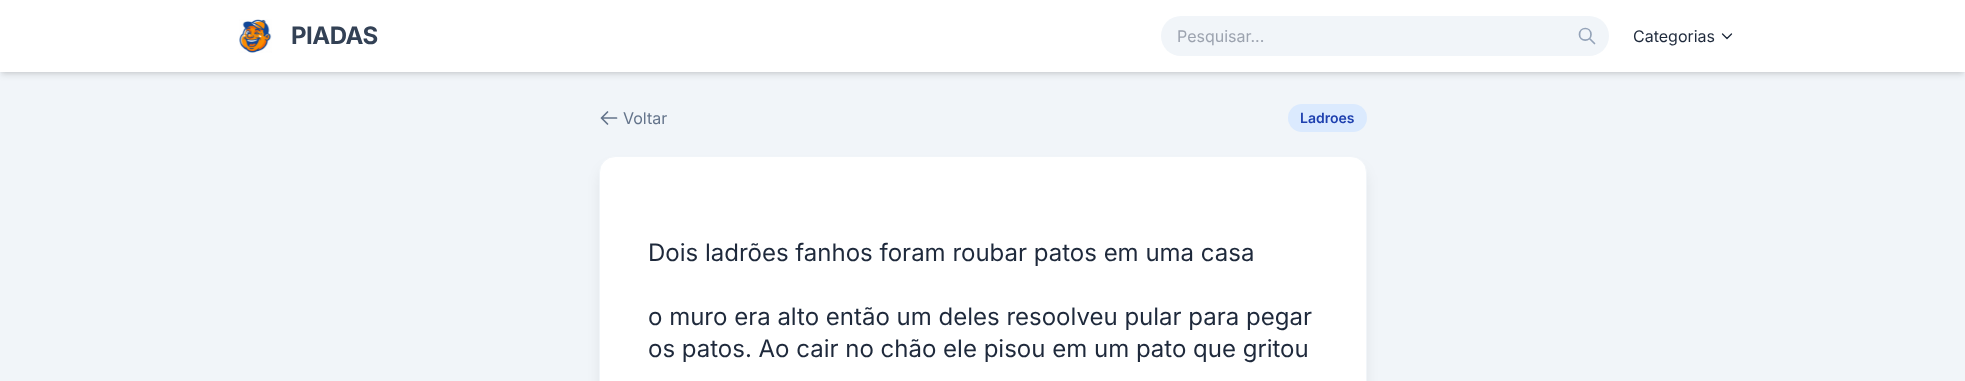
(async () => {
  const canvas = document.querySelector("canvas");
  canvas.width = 1965;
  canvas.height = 381;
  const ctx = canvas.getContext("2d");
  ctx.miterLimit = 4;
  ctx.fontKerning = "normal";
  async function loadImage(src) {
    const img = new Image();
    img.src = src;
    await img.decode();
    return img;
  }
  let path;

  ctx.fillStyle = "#f1f5f9";
  ctx.fillRect(0, 0, 1965, 381);
  ctx.fillStyle = "rgba(0, 0, 0, 0.1)";
  ctx.filter = "blur(2px)";
  ctx.beginPath();
  ctx.rect(2, 4, 1961, 68);
  ctx.fill();
  ctx.filter = "none";
  ctx.filter = "blur(3px)";
  ctx.beginPath();
  ctx.rect(1, 5, 1963, 70);
  ctx.fill();
  ctx.filter = "none";
  ctx.fillStyle = "#ffffff";
  ctx.fillRect(0, 0, 1965, 72);
  ctx.drawImage(await loadImage("img/1.png"), 239, 19, 33, 34);
  ctx.fillStyle = "#f1f5f9";
  ctx.beginPath();
  ctx.roundRect(1161, 16, 448, 40, 20);
  ctx.fill();
  path = new Path2D("M1594.5 43.5L1589.5 38.5M1591 34.5C1591 42 1579.5 42 1579.5 34.5C1579.5 26.5 1591 26.5 1591 34.5Z");
  ctx.strokeStyle = "#94a3b8";
  ctx.lineWidth = 1.7;
  ctx.lineCap = "round";
  ctx.lineJoin = "round";
  ctx.stroke(path);
  path = new Path2D("M1731.5 34L1727 38.5L1722.5 34");
  ctx.strokeStyle = "#1e293b";
  ctx.lineWidth = 1.3;
  ctx.stroke(path);
  path = new Path2D("M607.5 124L601.5 118M601.5 118L607.5 112M601.5 118H616.5");
  ctx.strokeStyle = "#64748b";
  ctx.lineWidth = 1.7;
  ctx.stroke(path);
  ctx.fillStyle = "#dbeafe";
  ctx.beginPath();
  ctx.roundRect(1288, 104, 79, 28, 14);
  ctx.fill();
  ctx.fillStyle = "rgba(0, 0, 0, 0.1)";
  ctx.filter = "blur(7.5px)";
  ctx.beginPath();
  ctx.roundRect(602, 169, 762, 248, 13);
  ctx.fill();
  ctx.filter = "none";
  ctx.fillStyle = "#ffffff";
  ctx.beginPath();
  ctx.roundRect(599.5, 156.5, 767, 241, 15.5);
  ctx.fill();
  ctx.strokeStyle = "#f1f5f9";
  ctx.lineWidth = 1;
  ctx.lineJoin = "miter";
  ctx.stroke();
  ctx.letterSpacing = "-0.5px";
  ctx.font = "bold 24px Inter";
  ctx.fillStyle = "#334155";
  ctx.fillText("PIADAS", 291, 44);
  ctx.letterSpacing = "0px";
  ctx.font = "16px Inter";
  ctx.fillStyle = "#9ca3af";
  ctx.fillText("Pesquisar...", 1177, 42);
  ctx.fillStyle = "#1e293b";
  ctx.fillText("Categorias", 1633, 42);
  ctx.fillStyle = "#64748b";
  ctx.fillText("Voltar", 623, 124);
  ctx.font = "600 14px Inter";
  ctx.fillStyle = "#1e40af";
  ctx.fillText("Ladroes", 1300, 123);
  ctx.font = "24px Inter";
  ctx.fillStyle = "#1e293b";
  for (const [text, x, y] of [
    ["Dois ladrões fanhos foram roubar patos em uma casa", 648, 261],
    ["o muro era alto então um deles resoolveu pular para pegar", 648, 325],
    ["os patos. Ao cair no chão ele pisou em um pato que gritou", 648, 357],
  ]) {
    ctx.fillText(text, x, y);
  }
})();
